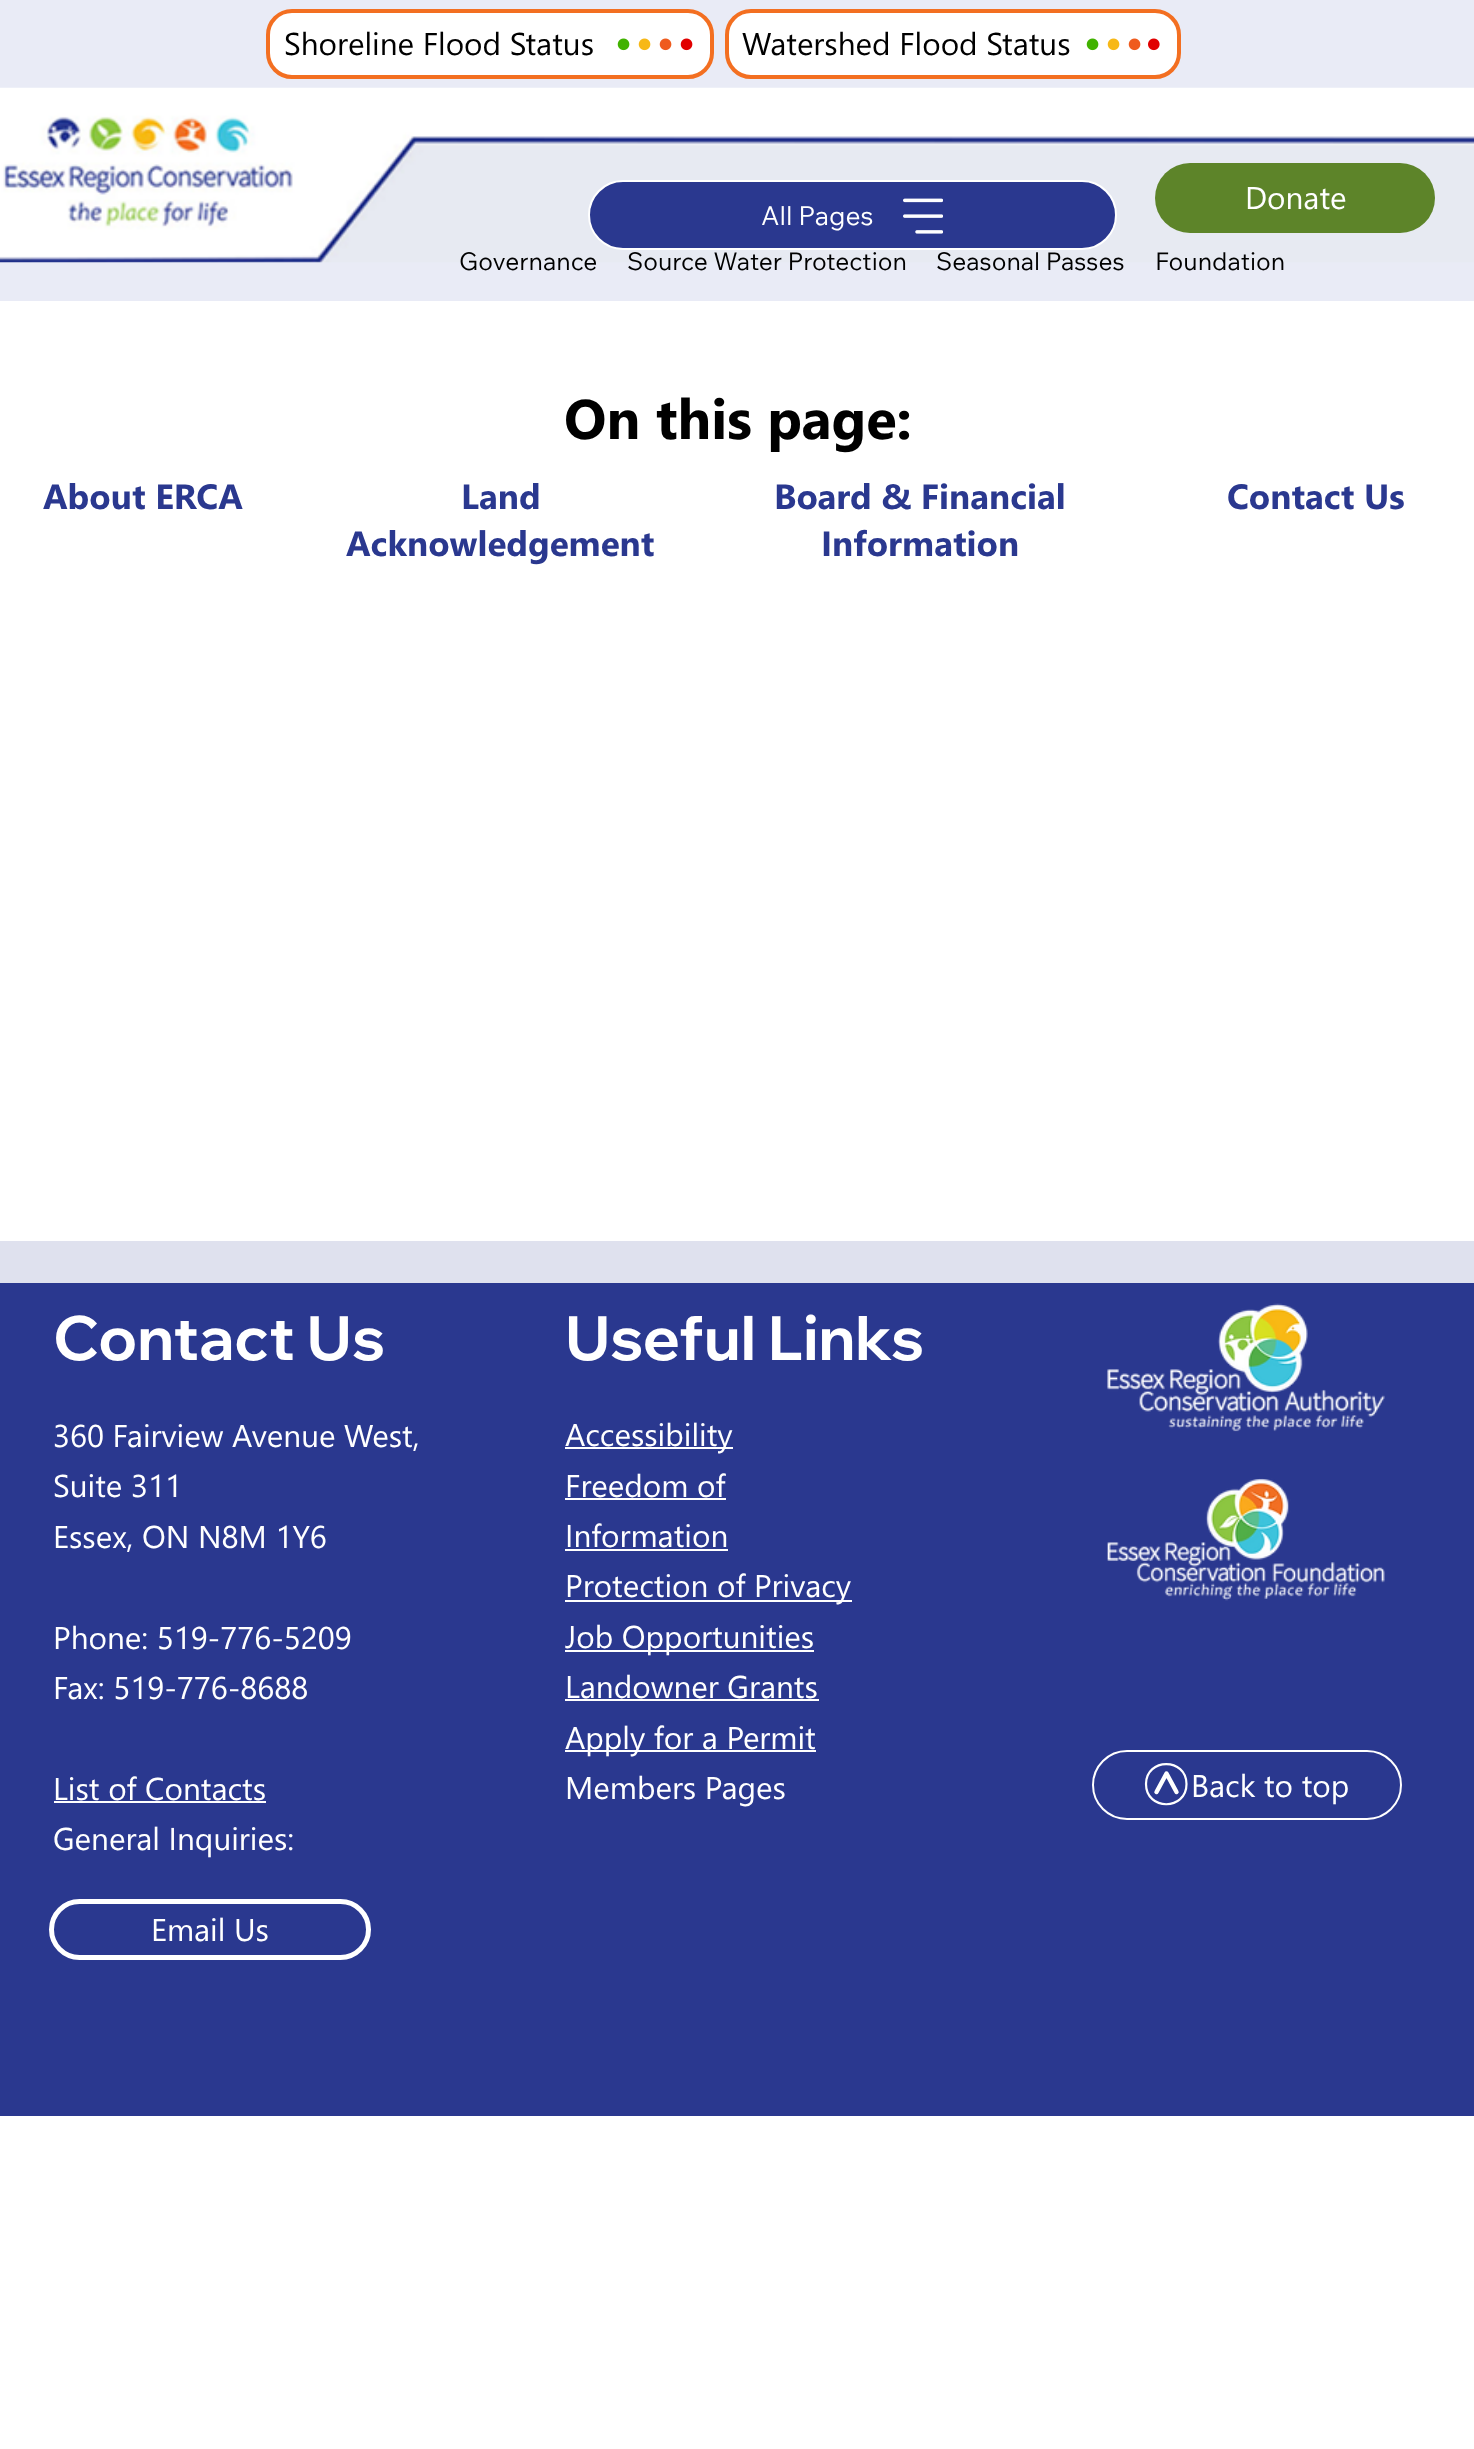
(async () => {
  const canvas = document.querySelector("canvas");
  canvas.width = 1474;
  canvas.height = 2449;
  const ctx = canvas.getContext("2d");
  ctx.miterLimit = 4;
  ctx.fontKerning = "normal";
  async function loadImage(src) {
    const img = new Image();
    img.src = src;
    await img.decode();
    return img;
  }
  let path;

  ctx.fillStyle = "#ffffff";
  ctx.fillRect(0, 0, 1474, 2449);
  ctx.fillStyle = "#e9ebf6";
  ctx.fillRect(0, 0, 1474, 301);
  ctx.fillStyle = "#ffffff";
  ctx.beginPath();
  ctx.roundRect(268, 11, 444, 66, 24);
  ctx.fill();
  ctx.strokeStyle = "#f36f21";
  ctx.lineWidth = 4;
  ctx.stroke();
  ctx.drawImage(await loadImage("img/1.png"), 617, 38, 13, 13);
  ctx.drawImage(await loadImage("img/2.png"), 638, 38, 13, 13);
  ctx.drawImage(await loadImage("img/3.png"), 659, 38, 13, 13);
  ctx.drawImage(await loadImage("img/4.png"), 680, 38, 13, 13);
  ctx.beginPath();
  ctx.roundRect(727, 11, 452, 66, 24);
  ctx.fill();
  ctx.stroke();
  ctx.drawImage(await loadImage("img/1.png"), 1086, 38, 13, 13);
  ctx.drawImage(await loadImage("img/2.png"), 1107, 38, 13, 13);
  ctx.drawImage(await loadImage("img/3.png"), 1128, 38, 13, 13);
  ctx.drawImage(await loadImage("img/5.png"), 1148, 38, 12, 13);
  ctx.drawImage(await loadImage("img/6.png"), 0, 87, 1474, 176);
  ctx.fillStyle = "#5d8429";
  ctx.beginPath();
  ctx.roundRect(1155, 163, 280, 70, 35);
  ctx.fill();
  ctx.fillStyle = "#2a388f";
  ctx.beginPath();
  ctx.roundRect(589, 181, 527, 68, 34);
  ctx.fill();
  ctx.strokeStyle = "#ffffff";
  ctx.lineWidth = 2;
  ctx.stroke();
  ctx.drawImage(await loadImage("img/7.png"), 903, 198, 40, 36);
  for (const [x, y, w, h, color] of [
    [0, 1241, 1474, 42, "#dfe1ee"],
    [0, 1283, 1474, 833, "#2a388f"],
    [54, 1801, 212, 2, "#ffffff"],
  ]) {
    ctx.fillStyle = color;
    ctx.fillRect(x, y, w, h);
  }
  ctx.beginPath();
  ctx.roundRect(51.5, 1901.5, 317, 56, 28);
  ctx.lineWidth = 5;
  ctx.stroke();
  for (const [x, y, w, h, color] of [
    [565, 1447, 168, 2, "#ffffff"],
    [565, 1498, 161, 2, "#ffffff"],
    [565, 1549, 163, 2, "#ffffff"],
    [565, 1600, 287, 2, "#ffffff"],
    [565, 1650, 249, 2, "#ffffff"],
    [565, 1699, 254, 2, "#ffffff"],
    [565, 1750, 251, 2, "#ffffff"],
  ]) {
    ctx.fillStyle = color;
    ctx.fillRect(x, y, w, h);
  }
  ctx.drawImage(await loadImage("img/8.png"), 1107, 1303, 278, 129);
  ctx.drawImage(await loadImage("img/9.png"), 1107, 1478, 278, 123);
  ctx.beginPath();
  ctx.roundRect(1093, 1751, 308, 68, 34);
  ctx.lineWidth = 2;
  ctx.stroke();
  path = new Path2D("M1156.5 1792L1166.5 1773.5L1176.5 1792");
  ctx.lineWidth = 4.4;
  ctx.lineCap = "round";
  ctx.lineJoin = "round";
  ctx.stroke(path);
  path = new Path2D("M1186.5 1784C1186.5 1811 1146 1811 1146 1784C1146 1757.5 1186.5 1757.5 1186.5 1784Z");
  ctx.lineWidth = 2.2;
  ctx.lineCap = "butt";
  ctx.lineJoin = "miter";
  ctx.stroke(path);
  ctx.font = "31.5px Segoe UI";
  ctx.fillStyle = "#000000";
  ctx.fillText("Shoreline Flood Status", 284, 55);
  ctx.fillText("Watershed Flood Status", 742, 55);
  ctx.fillStyle = "#ffffff";
  ctx.fillText("Donate", 1245, 209);
  ctx.font = "26.25px Wix Madefor Text";
  ctx.fillText("All Pages", 761, 225);
  ctx.font = "24.5px Wix Madefor Text";
  ctx.fillStyle = "#000000";
  for (const [text, x, y] of [
    ["Governance", 459, 270],
    ["Source Water Protection", 627, 270],
    ["Seasonal Passes", 936, 270],
    ["Foundation", 1155, 270],
  ]) {
    ctx.fillText(text, x, y);
  }
  ctx.font = "bold 56px Segoe UI";
  ctx.fillText("On this page:", 564, 439);
  ctx.font = "bold 35px Segoe UI";
  ctx.fillStyle = "#2a388f";
  for (const [text, x, y] of [
    ["About ERCA", 43, 509],
    ["Land", 461, 509],
    ["Acknowledgement", 346, 556],
    ["Board & Financial", 774, 509],
    ["Information", 821, 556],
    ["Contact Us", 1227, 509],
  ]) {
    ctx.fillText(text, x, y);
  }
  ctx.font = "bold 61.25px Wix Madefor Display";
  ctx.fillStyle = "#ffffff";
  ctx.fillText("Contact Us", 53, 1360);
  ctx.font = "31.5px Segoe UI";
  for (const [text, x, y] of [
    ["360 Fairview Avenue West,", 53, 1447],
    ["Suite 311", 53, 1497],
    ["Essex, ON N8M 1Y6", 53, 1548],
    ["Phone: 519-776-5209", 53, 1649],
    ["Fax: 519-776-8688", 53, 1699],
    ["List of Contacts", 53, 1800],
    ["General Inquiries:", 53, 1850],
    ["Email Us", 151, 1941],
  ]) {
    ctx.fillText(text, x, y);
  }
  ctx.font = "bold 61.25px Wix Madefor Display";
  ctx.fillText("Useful Links", 565, 1360);
  ctx.font = "31.5px Segoe UI";
  for (const [text, x, y] of [
    ["Accessibility", 565, 1446],
    ["Freedom of", 565, 1497],
    ["Information", 565, 1547],
    ["Protection of Privacy", 565, 1597],
    ["Job Opportunities", 565, 1648],
    ["Landowner Grants", 565, 1698],
    ["Apply for a Permit", 565, 1749],
    ["Members Pages", 565, 1799],
    ["Back to top", 1191, 1797],
  ]) {
    ctx.fillText(text, x, y);
  }
})();
